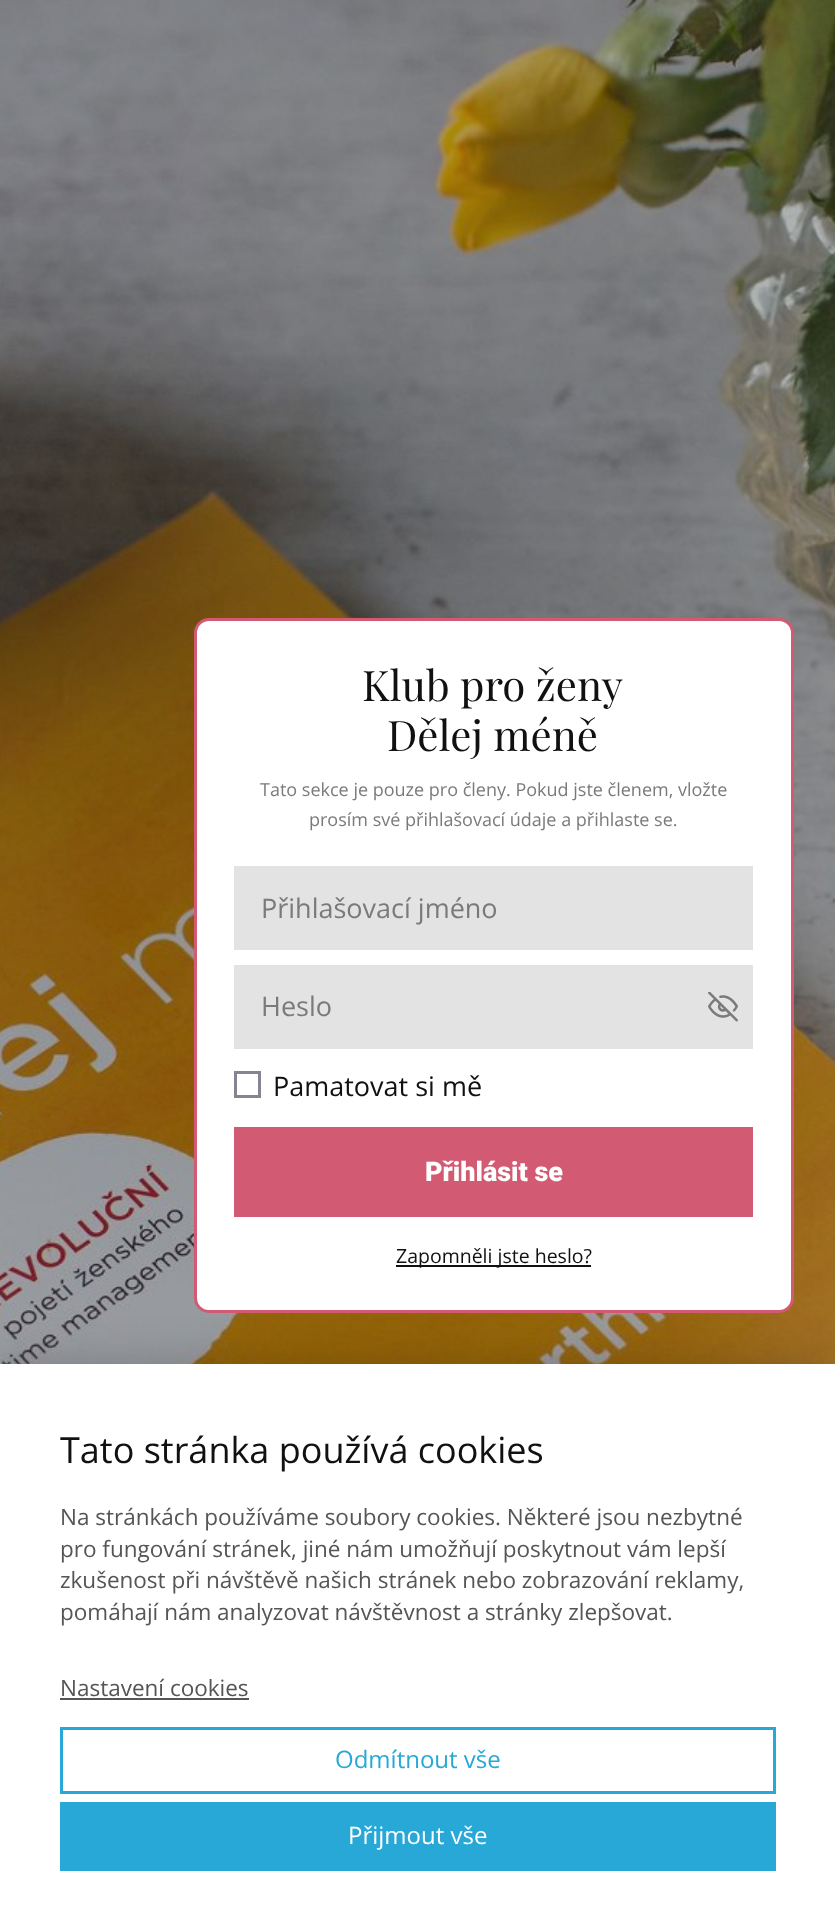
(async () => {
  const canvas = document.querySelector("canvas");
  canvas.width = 835;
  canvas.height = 1930;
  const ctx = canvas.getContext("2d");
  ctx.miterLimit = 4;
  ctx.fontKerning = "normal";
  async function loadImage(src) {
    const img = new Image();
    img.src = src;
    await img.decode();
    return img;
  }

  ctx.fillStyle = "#ffffff";
  ctx.fillRect(0, 0, 835, 1930);
  ctx.drawImage(await loadImage("img/1.png"), 0, 0, 835, 1364);
  ctx.beginPath();
  ctx.roundRect(195.5, 619.5, 597, 692, 13.5);
  ctx.fill();
  ctx.strokeStyle = "#d25b73";
  ctx.lineWidth = 3;
  ctx.stroke();
  ctx.fillStyle = "#e3e3e3";
  ctx.fillRect(234, 866, 519, 84);
  ctx.fillRect(234, 965, 519, 84);
  ctx.drawImage(await loadImage("img/2.png"), 708, 992, 30, 30);
  ctx.strokeStyle = "#848492";
  ctx.strokeRect(235.5, 1072.5, 24, 24);
  ctx.fillStyle = "#d25b73";
  ctx.fillRect(234, 1127, 519, 90);
  ctx.fillStyle = "#111111";
  ctx.fillRect(396, 1265, 195, 2);
  ctx.fillStyle = "rgba(0, 0, 0, 0.2)";
  ctx.filter = "blur(22.5px)";
  ctx.beginPath();
  ctx.rect(0, 1364, 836, 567);
  ctx.fill();
  ctx.filter = "none";
  ctx.fillStyle = "#ffffff";
  ctx.fillRect(0, 1364, 835, 566);
  ctx.fillStyle = "#555555";
  ctx.fillRect(60, 1698, 189, 2);
  ctx.strokeStyle = "#27a8d7";
  ctx.strokeRect(61.5, 1728.5, 713, 64);
  ctx.fillStyle = "#27a8d7";
  ctx.fillRect(60, 1802, 716, 69);
  ctx.font = "42px Playfair Display";
  ctx.fillStyle = "#111111";
  ctx.fillText("Klub pro ženy", 362, 701);
  ctx.fillText("Dělej méně", 387, 751);
  ctx.font = "18px Open Sans";
  ctx.fillStyle = "#7a7a7a";
  ctx.fillText("Tato sekce je pouze pro členy. Pokud jste členem, vložte", 260, 796);
  ctx.fillText("prosím své přihlašovací údaje a přihlaste se.", 309, 826);
  ctx.font = "27px Open Sans";
  ctx.fillText("Přihlašovací jméno", 261, 918);
  ctx.fillText("Heslo", 261, 1016);
  ctx.fillStyle = "#111111";
  ctx.fillText("Pamatovat si mě", 273, 1096);
  ctx.font = "900 27px Roboto";
  ctx.fillStyle = "#ffffff";
  ctx.fillText("Přihlásit se", 425, 1181);
  ctx.font = "19.5px Open Sans";
  ctx.fillStyle = "#111111";
  ctx.fillText("Zapomněli jste heslo?", 396, 1263);
  ctx.font = "36px Open Sans";
  ctx.fillText("Tato stránka používá cookies", 60, 1463);
  ctx.font = "22.5px Open Sans";
  ctx.fillStyle = "#555555";
  for (const [text, x, y] of [
    ["Na stránkách používáme soubory cookies. Některé jsou nezbytné", 60, 1525],
    ["pro fungování stránek, jiné nám umožňují poskytnout vám lepší", 60, 1557],
    ["zkušenost při návštěvě našich stránek nebo zobrazování reklamy,", 60, 1588],
    ["pomáhají nám analyzovat návštěvnost a stránky zlepšovat.", 60, 1620],
    ["Nastavení cookies", 60, 1696],
  ]) {
    ctx.fillText(text, x, y);
  }
  ctx.font = "24px Open Sans";
  ctx.fillStyle = "#27a8d7";
  ctx.fillText("Odmítnout vše", 335, 1768);
  ctx.fillStyle = "#ffffff";
  ctx.fillText("Přijmout vše", 348, 1844);
})();
